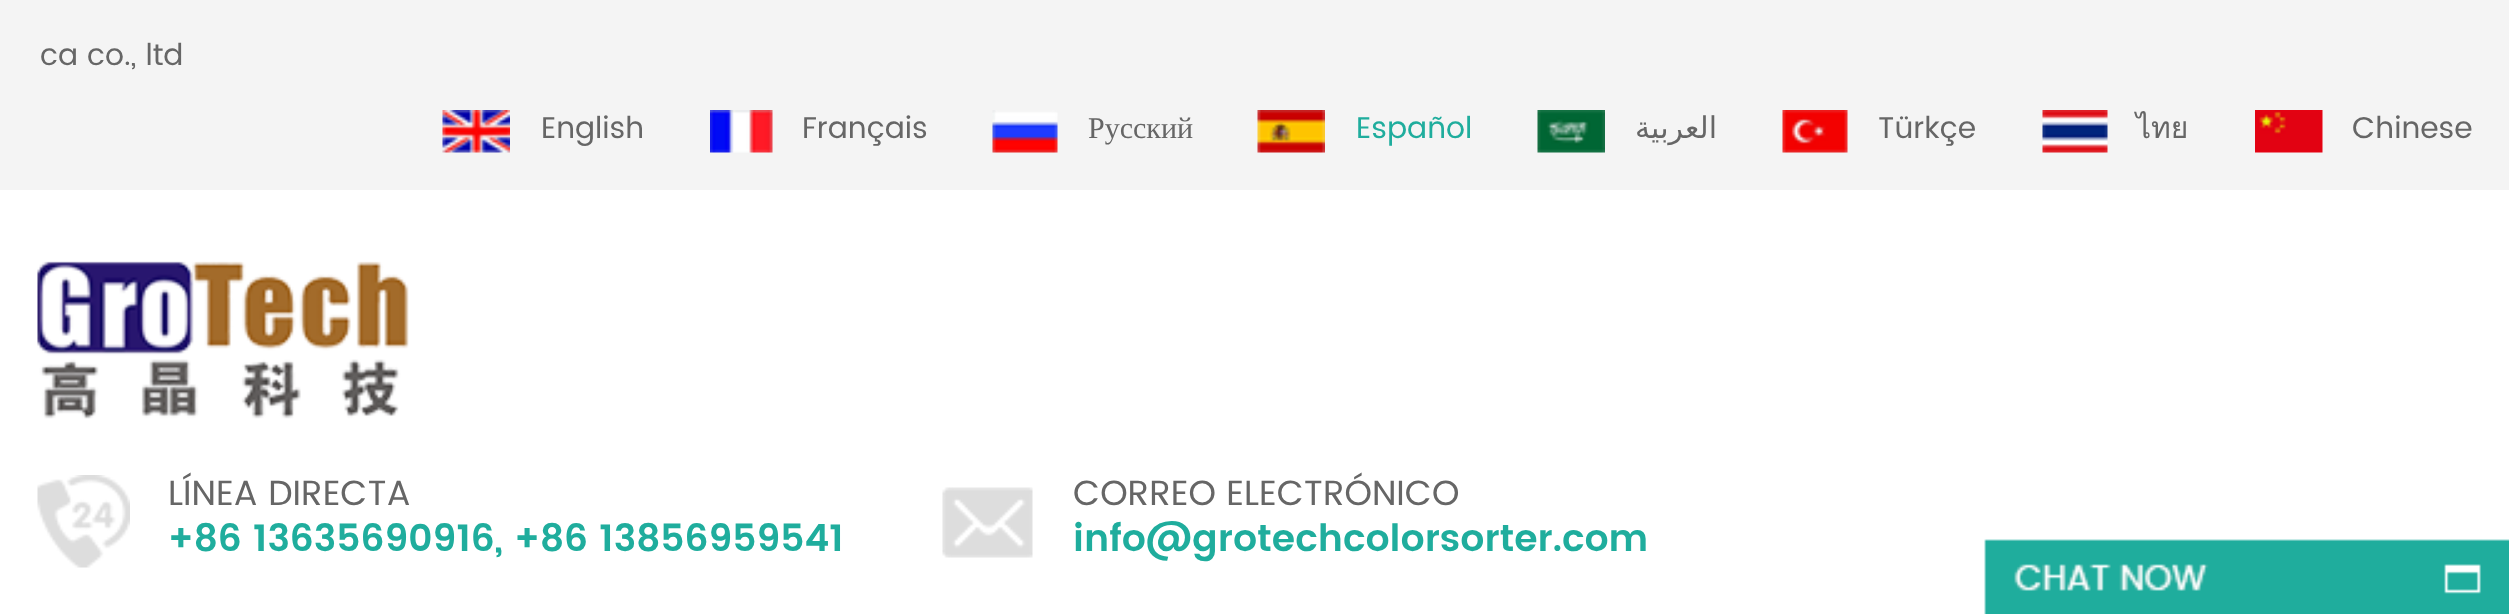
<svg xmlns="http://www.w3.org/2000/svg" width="2509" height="614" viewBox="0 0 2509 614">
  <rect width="100%" height="100%" fill="#fff"/>
  <path d="M0 0h2509v190H0z" fill="#f4f4f4"/>
  <image x="442" y="110" width="68" height="43" href="img/1.png"/>
  <image x="710" y="110" width="63" height="43" href="img/2.png"/>
  <image x="992" y="110" width="66" height="43" href="img/3.png"/>
  <image x="1257" y="110" width="68" height="43" href="img/4.png"/>
  <image x="1537" y="110" width="68" height="43" href="img/5.png"/>
  <image x="1782" y="110" width="66" height="43" href="img/6.png"/>
  <image x="2042" y="110" width="66" height="43" href="img/7.png"/>
  <image x="2255" y="110" width="68" height="43" href="img/8.png"/>
  <image x="37" y="261" width="372" height="158" href="img/9.png"/>
  <image x="37" y="475" width="93" height="93" href="img/10.png"/>
  <image x="942" y="487" width="91" height="71" href="img/11.png"/>
  <image x="1984" y="539" width="525" height="75" href="img/12.png"/>
  <g font-family="Poppins" font-size="30" fill="#666">
    <text x="40" y="65">ca co., ltd</text>
    <text x="541" y="138">English</text>
    <text x="802" y="138">Français</text>
  </g>
  <text x="1088" y="138" font-family="Liberation Serif" font-size="30" fill="#666">Русский</text>
  <text x="1356" y="138" font-family="Poppins" font-size="30" fill="#1fad9d">Español</text>
  <text x="1717" y="138" font-family="DejaVu Sans" font-size="30" direction="rtl" fill="#666">العربية</text>
  <text x="1878" y="138" font-family="Poppins" font-size="30" fill="#666">Türkçe</text>
  <text x="2136" y="138" font-family="Loma" font-size="30" fill="#666">ไทย</text>
  <text x="2352" y="138" font-family="Poppins" font-size="30" fill="#666">Chinese</text>
  <text x="168" y="505" font-family="Poppins" font-size="35" fill="#666">LÍNEA DIRECTA</text>
  <text x="168" y="551" font-family="Poppins" font-size="37.5" font-weight="600" fill="#1fad9d">+86 13635690916, +86 13856959541</text>
  <text x="1073" y="505" font-family="Poppins" font-size="35" fill="#666">CORREO ELECTRÓNICO</text>
  <text x="1073" y="551" font-family="Poppins" font-size="37.5" font-weight="600" fill="#1fad9d">info@grotechcolorsorter.com</text>
</svg>
